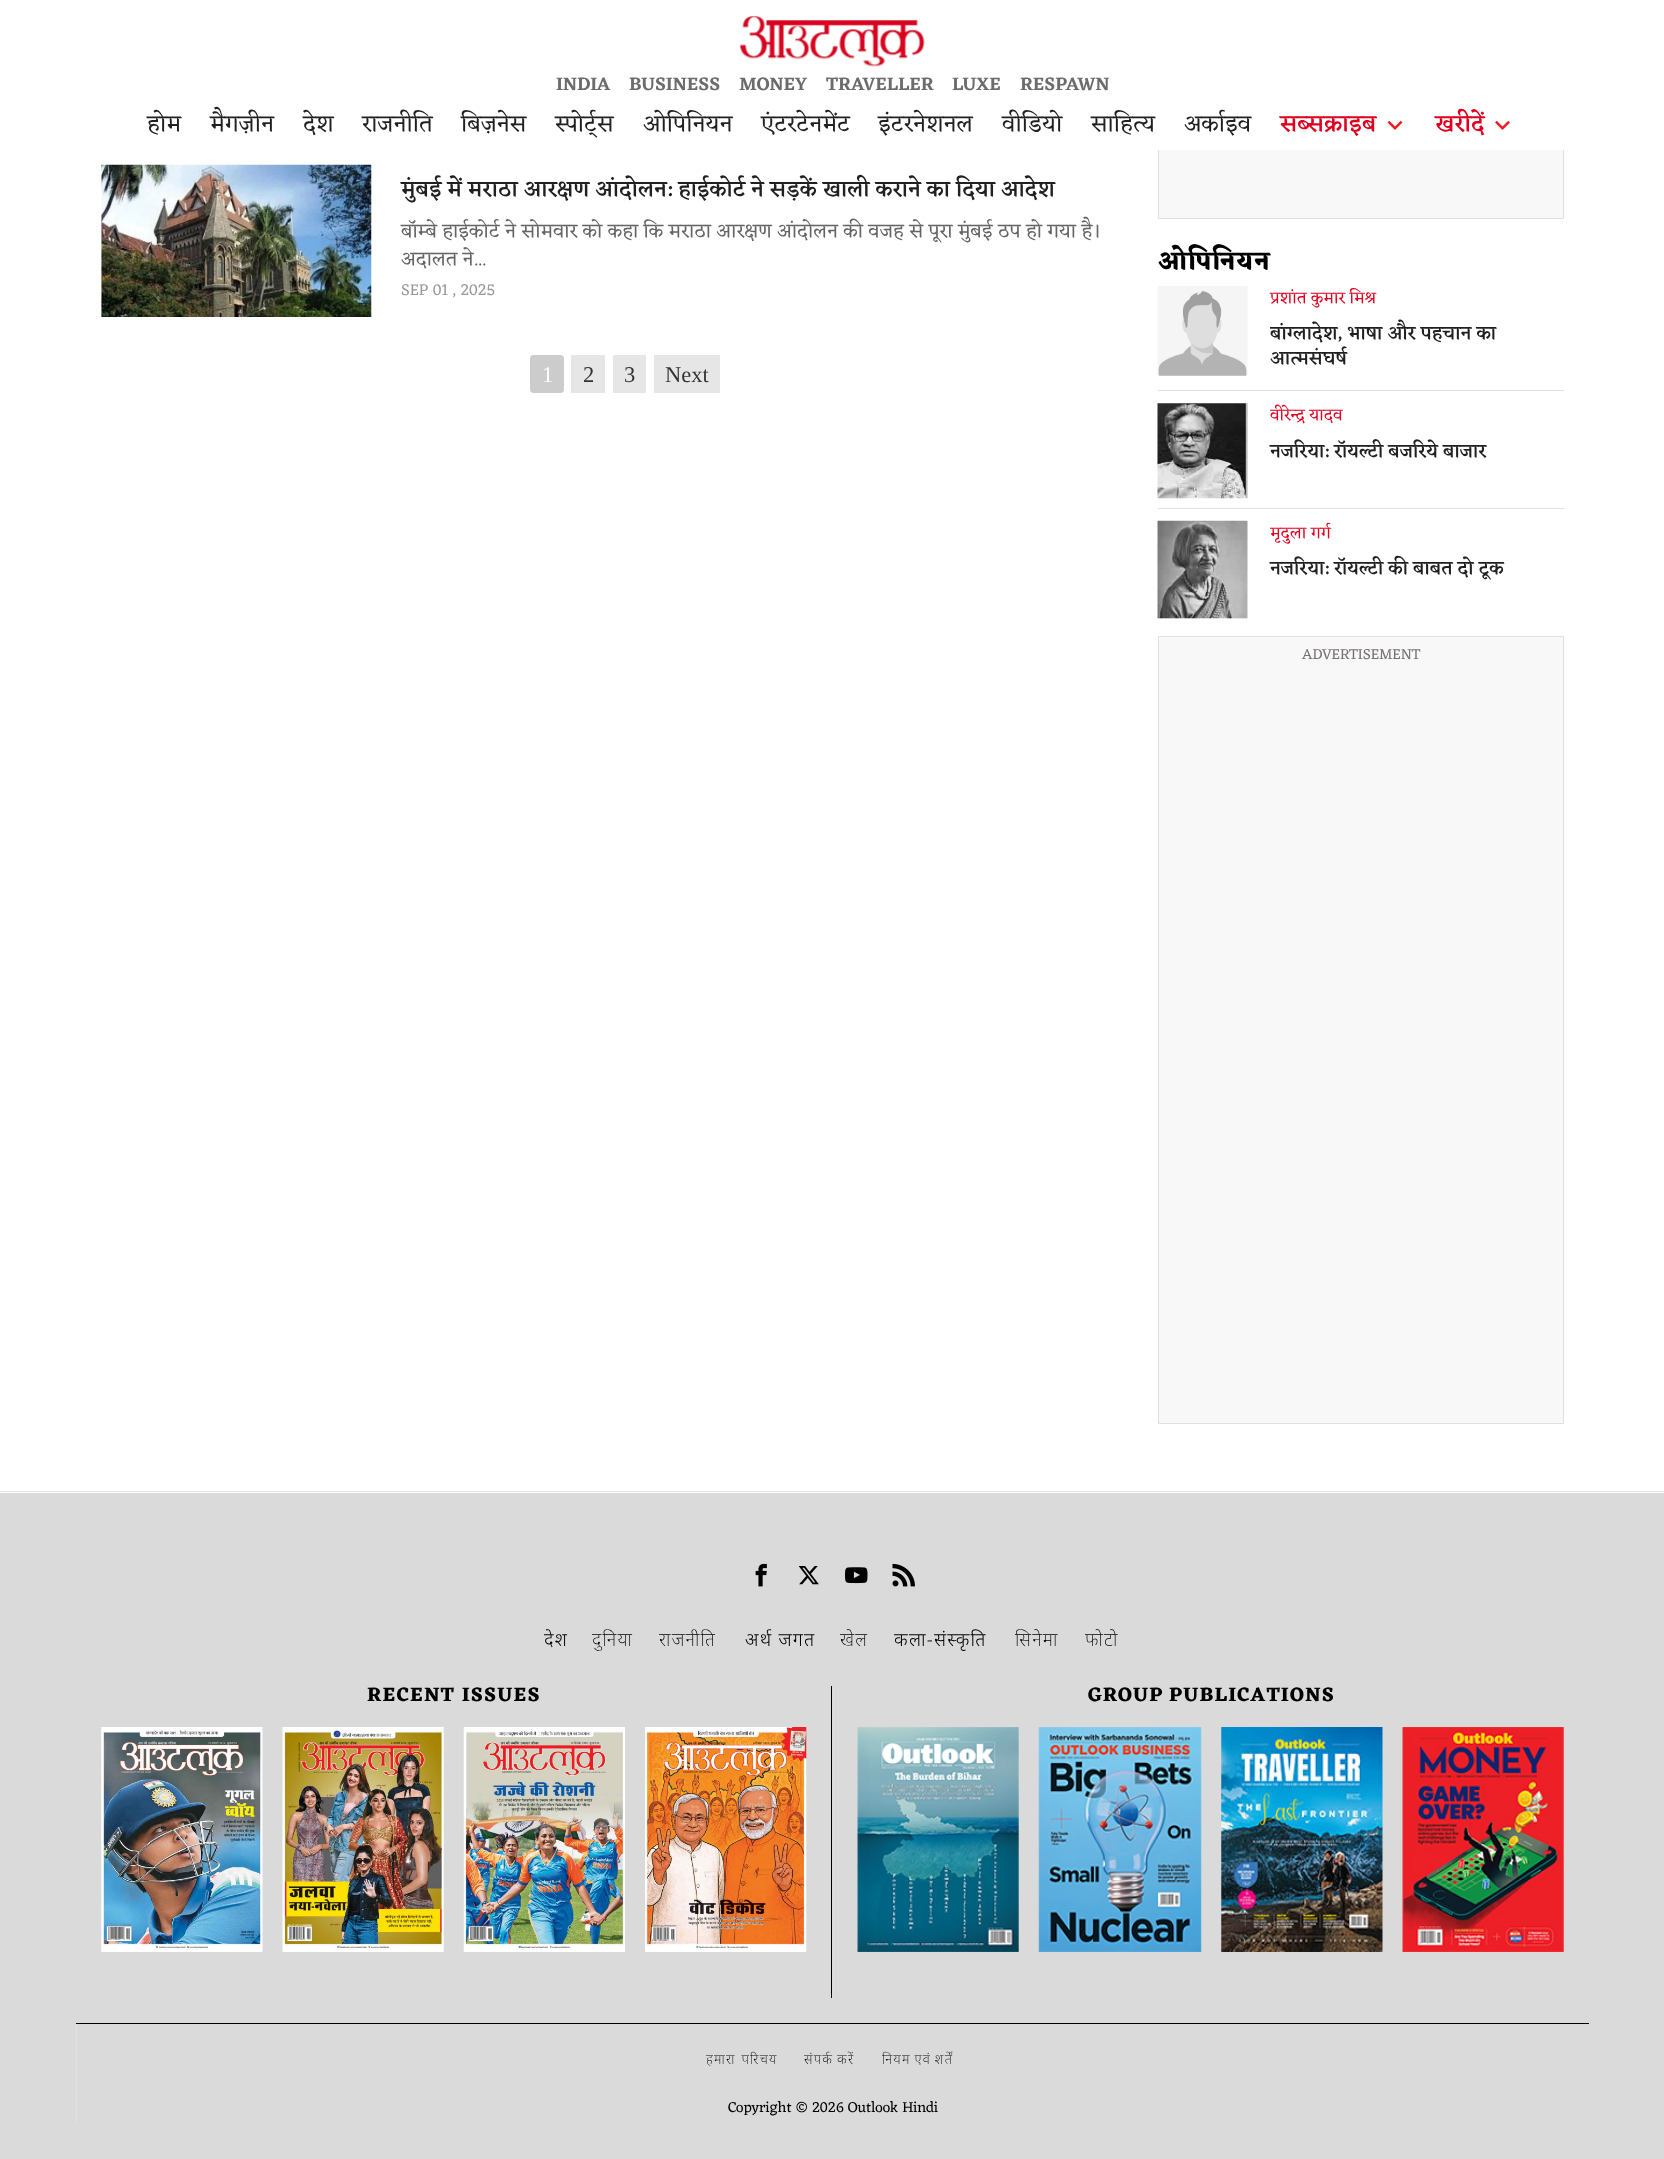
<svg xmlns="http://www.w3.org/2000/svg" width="1664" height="2159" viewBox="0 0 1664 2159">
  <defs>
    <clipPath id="clip1"><path d="M1270 286h294v87H1270z"/></clipPath>
    <clipPath id="clip2"><path d="M1270 404h294v61H1270z"/></clipPath>
    <clipPath id="clip3"><path d="M1270 521h294v62H1270z"/></clipPath>
  </defs>
  <rect width="100%" height="100%" fill="#fff"/>
  <path d="M1159 150h404v68H1159z" fill="#f8f8f8"/>
  <path d="M1158.5 -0.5h405v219H1158.5z" fill="none" stroke="#e1dede"/>
  <path d="M1158 0h406v150H1158z" fill="#fff"/>
  <image x="739" y="15" width="186" height="52" href="img/1.png"/>
  <image x="1387" y="120" width="16" height="10" href="img/2.png"/>
  <image x="1495" y="120" width="15" height="10" href="img/3.png"/>
  <image x="101" y="164" width="271" height="153" href="img/4.png"/>
  <rect x="530" y="355" width="34" height="38" rx="4" fill="#ccc"/>
  <path d="M571 355h34v38H571z" fill="#e6e6e6"/>
  <path d="M613 355h33v38H613z" fill="#e6e6e6"/>
  <path d="M654 355h66v38H654z" fill="#e6e6e6"/>
  <image x="1157" y="286" width="91" height="90" href="img/5.png"/>
  <path d="M1158 390h406v1H1158z" fill="#e0e0e1"/>
  <image x="1157" y="403" width="91" height="96" href="img/6.png"/>
  <path d="M1158 508h406v1H1158z" fill="#e0e0e1"/>
  <image x="1157" y="520" width="91" height="99" href="img/7.png"/>
  <path d="M1158.5 636.5h405v787H1158.5z" fill="#f8f8f8" stroke="#e1dede"/>
  <path d="M0 1493h1664v666H0z" fill="#dadada"/>
  <path d="M0 1491h1664v1H0z" fill="#e0e0e1"/>
  <image x="755" y="1563" width="12" height="24" href="img/8.png"/>
  <image x="798" y="1566" width="21" height="19" href="img/9.png"/>
  <image x="845" y="1567" width="23" height="17" href="img/10.png"/>
  <image x="892" y="1563" width="23" height="24" href="img/11.png"/>
  <path d="M831 1686h1v312H831z" fill="#000"/>
  <image x="101" y="1727" width="162" height="225" href="img/12.png"/>
  <image x="282" y="1727" width="162" height="225" href="img/13.png"/>
  <image x="463" y="1727" width="162" height="225" href="img/14.png"/>
  <image x="645" y="1727" width="162" height="225" href="img/15.png"/>
  <path d="M833 1686h1v312H833z" fill="#e0e0e1"/>
  <image x="857" y="1727" width="162" height="225" href="img/16.png"/>
  <image x="1038" y="1727" width="164" height="225" href="img/17.png"/>
  <image x="1221" y="1727" width="162" height="225" href="img/18.png"/>
  <image x="1402" y="1727" width="162" height="225" href="img/19.png"/>
  <path d="M76 2023h1513v1H76z" fill="#000"/>
  <path d="M76 2024h1v99H76z" fill="#e0e0e1"/>
  <g font-family="Eczar" font-size="18.75" font-weight="600" fill="#6e6b6b">
    <text x="556" y="90">INDIA</text>
    <text x="629" y="90">BUSINESS</text>
    <text x="739" y="90">MONEY</text>
    <text x="826" y="90">TRAVELLER</text>
    <text x="952" y="90">LUXE</text>
    <text x="1020" y="90">RESPAWN</text>
  </g>
  <g font-family="Eczar" font-size="23.75" fill="#221f1f">
    <text x="147" y="131">होम</text>
    <text x="210" y="131">मैगज़ीन</text>
    <text x="303" y="131">देश</text>
    <text x="362" y="131">राजनीति</text>
    <text x="461" y="131">बिज़नेस</text>
    <text x="555" y="131">स्पोर्ट्स</text>
    <text x="643" y="131">ओपिनियन</text>
    <text x="761" y="131">एंटरटेनमेंट</text>
    <text x="878" y="131">इंटरनेशनल</text>
    <text x="1002" y="131">वीडियो</text>
    <text x="1091" y="131">साहित्य</text>
    <text x="1184" y="131">अर्काइव</text>
  </g>
  <g font-family="Eczar" font-size="23.75" font-weight="500" fill="#df001f">
    <text x="1280" y="131">सब्सक्राइब</text>
    <text x="1435" y="131">खरीदें</text>
  </g>
  <text x="401" y="196" font-family="Eczar" font-size="22.5" font-weight="500" fill="#221f1f">मुंबई में मराठा आरक्षण आंदोलन: हाईकोर्ट ने सड़कें खाली कराने का दिया आदेश</text>
  <g font-family="Eczar" font-size="20" fill="#656565">
    <text x="401" y="237">बॉम्बे हाईकोर्ट ने सोमवार को कहा कि मराठा आरक्षण आंदोलन की वजह से पूरा मुंबई ठप हो गया है।</text>
    <text x="401" y="265">अदालत ने...</text>
  </g>
  <text x="401" y="295" font-family="Eczar" font-size="16.25" fill="#999">SEP 01 , 2025</text>
  <text x="542" y="382" font-family="Liberation Serif" font-size="22.5" fill="#fff">1</text>
  <g font-family="Liberation Serif" font-size="22.5" fill="#333">
    <text x="583" y="382">2</text>
    <text x="624" y="382">3</text>
    <text x="665" y="382">Next</text>
  </g>
  <text x="1158" y="269" font-family="Eczar" font-size="25" font-weight="bold" letter-spacing="1.25" fill="#000">ओपिनियन</text>
  <text x="1270" y="303" font-family="Eczar" font-size="17" fill="#df001f">प्रशांत कुमार मिश्र</text>
  <g clip-path="url(#clip1)">
    <text x="1270" y="339" font-family="Eczar" font-size="19.1" font-weight="500" fill="#221f1f">बांग्लादेश, भाषा और पहचान का</text>
  </g>
  <text x="1270" y="364" font-family="Eczar" font-size="19.1" font-weight="500" fill="#221f1f">आत्मसंघर्ष</text>
  <g clip-path="url(#clip2)">
    <text x="1270" y="420" font-family="Eczar" font-size="17" fill="#df001f">वीरेन्द्र यादव</text>
  </g>
  <text x="1270" y="457" font-family="Eczar" font-size="19.1" font-weight="500" fill="#221f1f">नजरिया: रॉयल्टी बजरिये बाजार</text>
  <g clip-path="url(#clip3)">
    <text x="1270" y="538" font-family="Eczar" font-size="17" fill="#df001f">मृदुला गर्ग</text>
  </g>
  <text x="1270" y="574" font-family="Eczar" font-size="19.1" font-weight="500" fill="#221f1f">नजरिया: रॉयल्टी की बाबत दो टूक</text>
  <text x="1302" y="659" font-family="Eczar" font-size="15" fill="#777272">ADVERTISEMENT</text>
  <text x="544" y="1646" font-family="Noto Sans" font-size="18.75" font-weight="300" letter-spacing="1.25" fill="#000">देश</text>
  <g font-family="Noto Sans" font-size="18.75" font-weight="200" letter-spacing="1.25" fill="#000">
    <text x="592" y="1646">दुनिया</text>
    <text x="659" y="1646">राजनीति</text>
  </g>
  <text x="745" y="1646" font-family="Noto Sans" font-size="18.75" font-weight="300" letter-spacing="1.25" fill="#000">अर्थ जगत</text>
  <text x="840" y="1646" font-family="Noto Sans" font-size="18.75" font-weight="200" letter-spacing="1.25" fill="#000">खेल</text>
  <text x="894" y="1646" font-family="Noto Sans" font-size="18.75" font-weight="300" letter-spacing="1.25" fill="#000">कला-संस्कृति</text>
  <g font-family="Noto Sans" font-size="18.75" font-weight="200" letter-spacing="1.25" fill="#000">
    <text x="1015" y="1646">सिनेमा</text>
    <text x="1085" y="1646">फोटो</text>
  </g>
  <g font-family="Eczar" font-size="20" font-weight="bold" letter-spacing="1.25" fill="#000">
    <text x="367" y="1701">RECENT ISSUES</text>
    <text x="1088" y="1701" word-spacing="-1">GROUP PUBLICATIONS</text>
  </g>
  <g font-family="Noto Sans" font-size="13.75" font-weight="200" letter-spacing="1.25" fill="#000">
    <text x="706" y="2064" word-spacing="1">हमारा परिचय</text>
    <text x="804" y="2064" word-spacing="-1">संपर्क करें</text>
    <text x="882" y="2064" word-spacing="-1">नियम एवं शर्तें</text>
  </g>
  <text x="728" y="2112" font-family="Eczar" font-size="15" fill="#000">Copyright © 2026 Outlook Hindi</text>
</svg>
